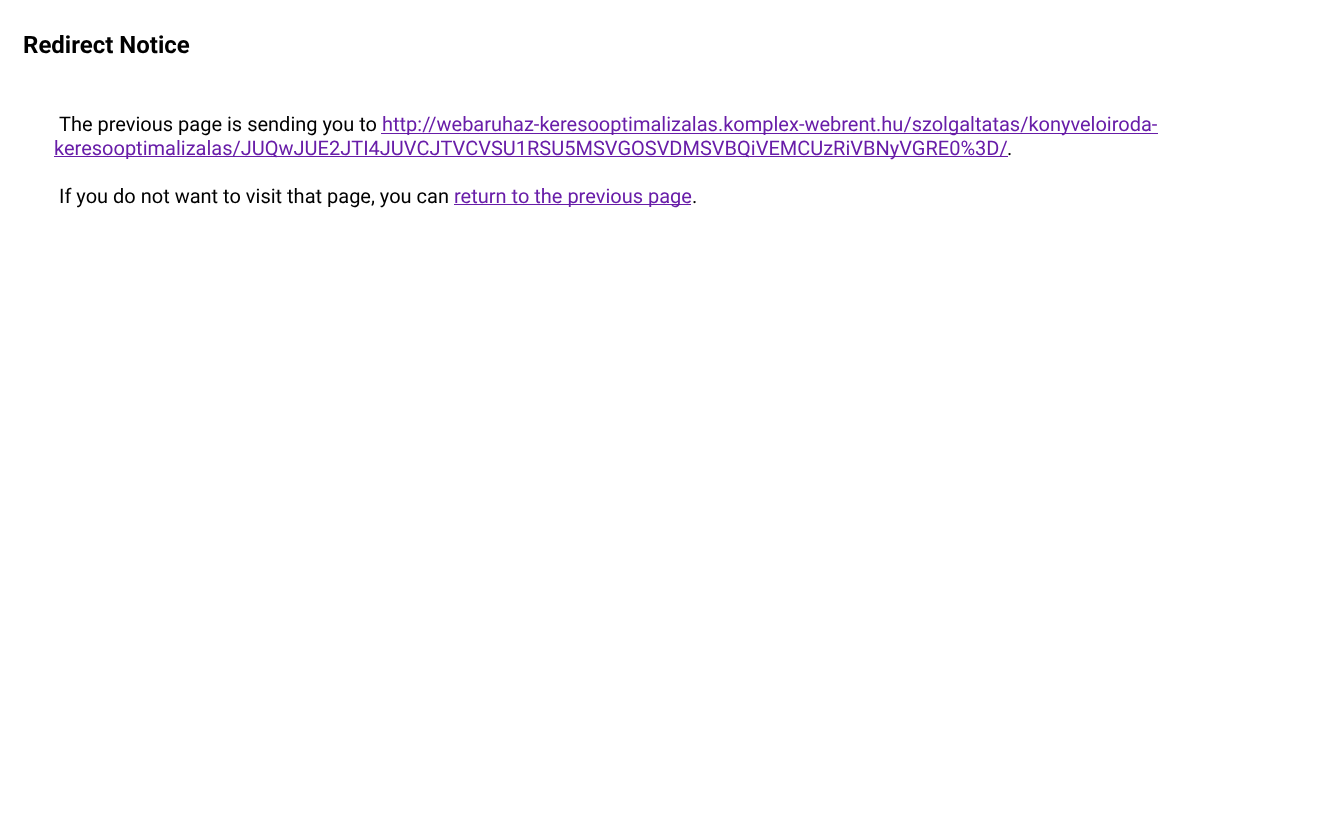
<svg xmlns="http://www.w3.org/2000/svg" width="1343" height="838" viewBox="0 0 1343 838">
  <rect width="100%" height="100%" fill="#fff"/>
  <path d="M381 133h777v1H381z" fill="#681da8"/>
  <path d="M54 156h954v1H54z" fill="#681da8"/>
  <path d="M454 204h237v1H454z" fill="#681da8"/>
  <text x="23" y="53" font-family="Roboto" font-size="24" font-weight="bold" fill="#000">Redirect Notice</text>
  <text x="59" y="131" font-family="Roboto" font-size="20" fill="#000">The previous page is sending you to</text>
  <g font-family="Roboto" font-size="20" fill="#681da8">
    <text x="382" y="131">http://webaruhaz-keresooptimalizalas.komplex-webrent.hu/szolgaltatas/konyveloiroda-</text>
    <text x="54" y="155">keresooptimalizalas/JUQwJUE2JTI4JUVCJTVCVSU1RSU5MSVGOSVDMSVBQiVEMCUzRiVBNyVGRE0%3D/</text>
  </g>
  <g font-family="Roboto" font-size="20" fill="#000">
    <text x="1007" y="155">.</text>
    <text x="59" y="203">If you do not want to visit that page, you can</text>
  </g>
  <text x="454" y="203" font-family="Roboto" font-size="20" fill="#681da8">return to the previous page</text>
  <text x="692" y="203" font-family="Roboto" font-size="20" fill="#000">.</text>
</svg>
